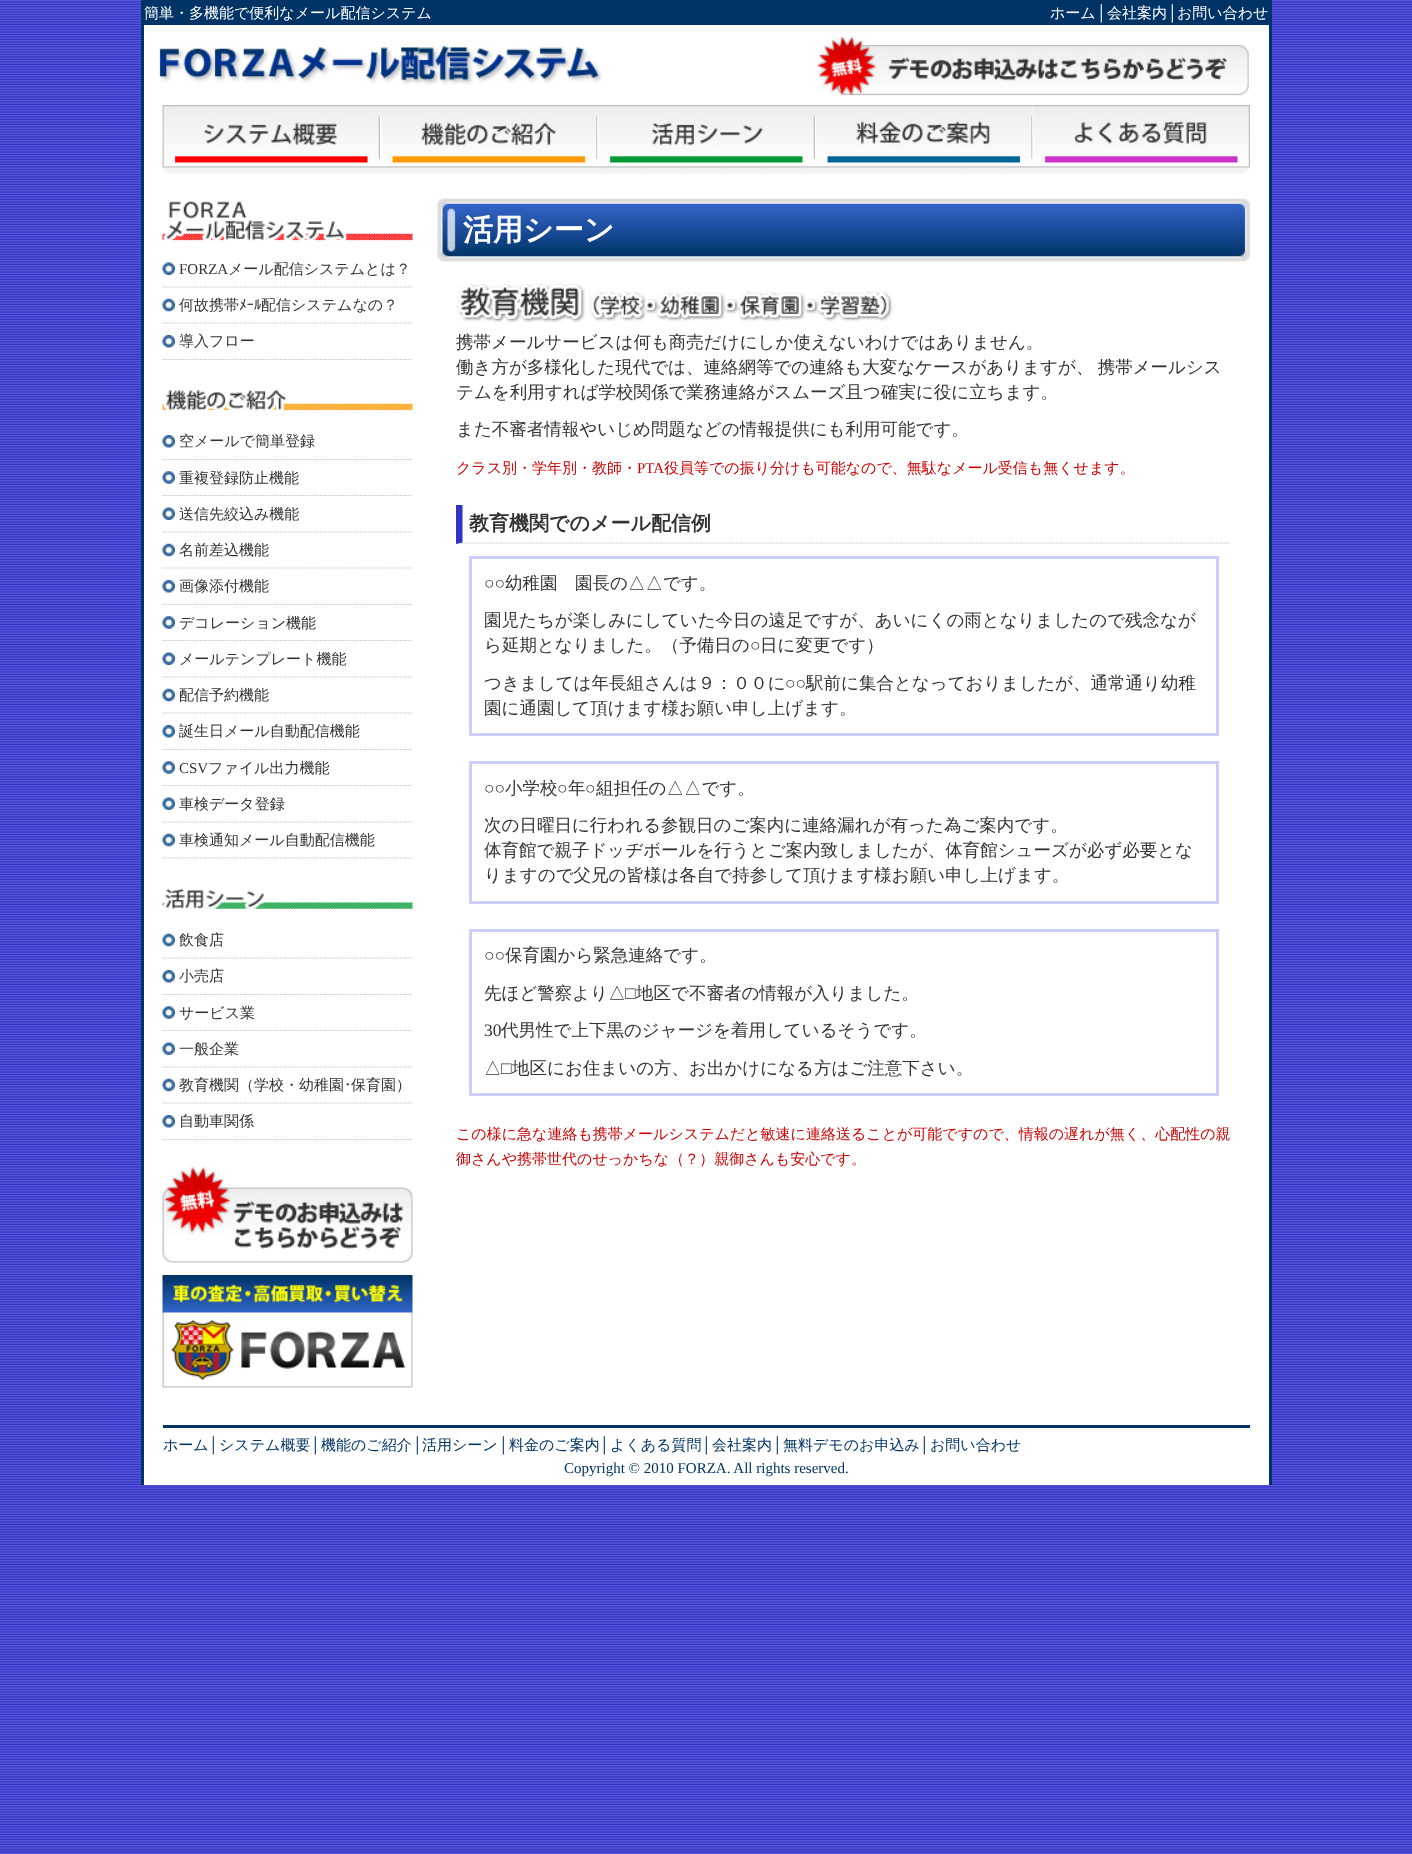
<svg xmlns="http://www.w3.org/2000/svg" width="1412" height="1854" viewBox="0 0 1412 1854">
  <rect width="100%" height="100%" fill="#fff"/>
  <image x="0" y="0" width="1412" height="1854" href="img/1.png"/>
  <path d="M144 25h1125v1460H144z" fill="#fff"/>
  <path d="M1269 0h3v1485H1269z" fill="#036"/>
  <path d="M141 0h3v1485H141z" fill="#036"/>
  <path d="M144 0h1125v25H144z" fill="#036"/>
  <image x="159" y="45" width="444" height="40" href="img/2.png"/>
  <image x="816" y="36" width="433" height="60" href="img/3.png"/>
  <image x="162" y="105" width="218" height="69" href="img/4.png"/>
  <image x="380" y="105" width="218" height="69" href="img/5.png"/>
  <image x="597" y="105" width="218" height="69" href="img/6.png"/>
  <image x="815" y="105" width="218" height="69" href="img/7.png"/>
  <image x="1032" y="105" width="218" height="69" href="img/8.png"/>
  <image x="162" y="201" width="251" height="40" href="img/9.png"/>
  <image x="162" y="262" width="13" height="13" href="img/10.png"/>
  <path d="M162.5 287H412.5" fill="none" stroke="#c0c0c0" stroke-width="1.2" stroke-dasharray="1.25 1.25"/>
  <image x="162" y="298" width="13" height="14" href="img/11.png"/>
  <path d="M162.5 323H412.5" fill="none" stroke="#c0c0c0" stroke-width="1.2" stroke-dasharray="1.25 1.25"/>
  <image x="162" y="335" width="13" height="13" href="img/12.png"/>
  <path d="M162.5 359.5H412.5" fill="none" stroke="#c0c0c0" stroke-width="1.2" stroke-dasharray="1.25 1.25"/>
  <image x="162" y="389" width="251" height="22" href="img/13.png"/>
  <image x="162" y="435" width="13" height="13" href="img/12.png"/>
  <path d="M162.5 459.5H412.5" fill="none" stroke="#c0c0c0" stroke-width="1.2" stroke-dasharray="1.25 1.25"/>
  <image x="162" y="471" width="13" height="13" href="img/14.png"/>
  <path d="M162.5 495.5H412.5" fill="none" stroke="#c0c0c0" stroke-width="1.2" stroke-dasharray="1.25 1.25"/>
  <image x="162" y="507" width="13" height="13" href="img/10.png"/>
  <path d="M162.5 532H412.5" fill="none" stroke="#c0c0c0" stroke-width="1.2" stroke-dasharray="1.25 1.25"/>
  <image x="162" y="543" width="13" height="14" href="img/11.png"/>
  <path d="M162.5 568H412.5" fill="none" stroke="#c0c0c0" stroke-width="1.2" stroke-dasharray="1.25 1.25"/>
  <image x="162" y="580" width="13" height="13" href="img/12.png"/>
  <path d="M162.5 604.5H412.5" fill="none" stroke="#c0c0c0" stroke-width="1.2" stroke-dasharray="1.25 1.25"/>
  <image x="162" y="616" width="13" height="13" href="img/14.png"/>
  <path d="M162.5 640.5H412.5" fill="none" stroke="#c0c0c0" stroke-width="1.2" stroke-dasharray="1.25 1.25"/>
  <image x="162" y="652" width="13" height="13" href="img/10.png"/>
  <path d="M162.5 677H412.5" fill="none" stroke="#c0c0c0" stroke-width="1.2" stroke-dasharray="1.25 1.25"/>
  <image x="162" y="688" width="13" height="14" href="img/11.png"/>
  <path d="M162.5 713H412.5" fill="none" stroke="#c0c0c0" stroke-width="1.2" stroke-dasharray="1.25 1.25"/>
  <image x="162" y="725" width="13" height="13" href="img/12.png"/>
  <path d="M162.5 749.5H412.5" fill="none" stroke="#c0c0c0" stroke-width="1.2" stroke-dasharray="1.25 1.25"/>
  <image x="162" y="761" width="13" height="13" href="img/14.png"/>
  <path d="M162.5 785.5H412.5" fill="none" stroke="#c0c0c0" stroke-width="1.2" stroke-dasharray="1.25 1.25"/>
  <image x="162" y="797" width="13" height="13" href="img/10.png"/>
  <path d="M162.5 822H412.5" fill="none" stroke="#c0c0c0" stroke-width="1.2" stroke-dasharray="1.25 1.25"/>
  <image x="162" y="833" width="13" height="14" href="img/11.png"/>
  <path d="M162.5 858H412.5" fill="none" stroke="#c0c0c0" stroke-width="1.2" stroke-dasharray="1.25 1.25"/>
  <image x="162" y="888" width="251" height="21" href="img/15.png"/>
  <image x="162" y="933" width="13" height="14" href="img/11.png"/>
  <path d="M162.5 958H412.5" fill="none" stroke="#c0c0c0" stroke-width="1.2" stroke-dasharray="1.25 1.25"/>
  <image x="162" y="970" width="13" height="13" href="img/12.png"/>
  <path d="M162.5 994.5H412.5" fill="none" stroke="#c0c0c0" stroke-width="1.2" stroke-dasharray="1.25 1.25"/>
  <image x="162" y="1006" width="13" height="13" href="img/14.png"/>
  <path d="M162.5 1030.5H412.5" fill="none" stroke="#c0c0c0" stroke-width="1.2" stroke-dasharray="1.25 1.25"/>
  <image x="162" y="1042" width="13" height="13" href="img/10.png"/>
  <path d="M162.5 1067H412.5" fill="none" stroke="#c0c0c0" stroke-width="1.2" stroke-dasharray="1.25 1.25"/>
  <image x="162" y="1078" width="13" height="14" href="img/11.png"/>
  <path d="M162.5 1103H412.5" fill="none" stroke="#c0c0c0" stroke-width="1.2" stroke-dasharray="1.25 1.25"/>
  <image x="162" y="1115" width="13" height="13" href="img/12.png"/>
  <path d="M162.5 1139.5H412.5" fill="none" stroke="#c0c0c0" stroke-width="1.2" stroke-dasharray="1.25 1.25"/>
  <image x="162" y="1166" width="251" height="97" href="img/16.png"/>
  <image x="162" y="1275" width="251" height="113" href="img/17.png"/>
  <image x="437" y="198" width="813" height="64" href="img/18.png"/>
  <image x="456" y="284" width="437" height="39" href="img/19.png"/>
  <path d="M456 543H1231" fill="none" stroke="#c0c0c0" stroke-width="1.2" stroke-dasharray="1.25 1.25"/>
  <path d="M456 544V505H462.5V542.5Z" fill="#33c"/>
  <path d="M470.5 557.5h747v177H470.5z" fill="none" stroke="#ccf" stroke-width="3"/>
  <path d="M470.5 762.5h747v140H470.5z" fill="none" stroke="#ccf" stroke-width="3"/>
  <path d="M470.5 930.5h747v164H470.5z" fill="none" stroke="#ccf" stroke-width="3"/>
  <path d="M163 1425h1087v3H163z" fill="#036"/>
  <g font-family="WenQuanYi Zen Hei" font-size="15" font-weight="500" fill="#fff">
    <text x="144" y="18">簡単・多機能で便利なメール配信システム</text>
    <text x="1050" y="18">ホーム</text>
  </g>
  <text x="1096" y="18" font-family="Liberation Serif" font-size="15" fill="#fff">│</text>
  <text x="1107" y="18" font-family="WenQuanYi Zen Hei" font-size="15" font-weight="500" fill="#fff">会社案内</text>
  <text x="1167" y="18" font-family="Liberation Serif" font-size="15" fill="#fff">│</text>
  <text x="1177" y="18" font-family="WenQuanYi Zen Hei" font-size="15" font-weight="500" fill="#fff">お問い合わせ</text>
  <text x="179" y="274" font-family="Liberation Serif" font-size="15" fill="#333">FORZA</text>
  <g font-family="WenQuanYi Zen Hei" font-size="15" font-weight="500" fill="#333">
    <text x="228" y="274">メール配信システムとは？</text>
    <text x="179" y="310">何故携帯</text>
  </g>
  <text x="239" y="310" font-family="IPAGothic" font-size="15" fill="#333">ﾒｰﾙ</text>
  <g font-family="WenQuanYi Zen Hei" font-size="15" font-weight="500" fill="#333">
    <text x="261" y="310">配信システムなの？</text>
    <text x="179" y="346">導入フロー</text>
    <text x="179" y="446">空メールで簡単登録</text>
    <text x="179" y="483">重複登録防止機能</text>
    <text x="179" y="519">送信先絞込み機能</text>
    <text x="179" y="555">名前差込機能</text>
    <text x="179" y="591">画像添付機能</text>
    <text x="179" y="628">デコレーション機能</text>
    <text x="179" y="664">メールテンプレート機能</text>
    <text x="179" y="700">配信予約機能</text>
    <text x="179" y="736">誕生日メール自動配信機能</text>
  </g>
  <text x="179" y="773" font-family="Liberation Serif" font-size="15" fill="#333">CSV</text>
  <g font-family="WenQuanYi Zen Hei" font-size="15" font-weight="500" fill="#333">
    <text x="208" y="773">ファイル出力機能</text>
    <text x="179" y="809">車検データ登録</text>
    <text x="179" y="845">車検通知メール自動配信機能</text>
    <text x="179" y="945">飲食店</text>
    <text x="179" y="981">小売店</text>
    <text x="179" y="1018">サービス業</text>
    <text x="179" y="1054">一般企業</text>
    <text x="179" y="1090">教育機関（学校・幼稚園</text>
  </g>
  <text x="344" y="1090" font-family="IPAGothic" font-size="15" fill="#333">･</text>
  <g font-family="WenQuanYi Zen Hei" font-size="15" font-weight="500" fill="#333">
    <text x="351" y="1090">保育園）</text>
    <text x="179" y="1126">自動車関係</text>
  </g>
  <text x="463" y="240" font-family="WenQuanYi Zen Hei" font-size="30" font-weight="bold" fill="#fff">活用シーン</text>
  <g font-family="WenQuanYi Zen Hei" font-size="17.5" font-weight="500" fill="#333">
    <text x="456" y="348">携帯メールサービスは何も商売だけにしか使えないわけではありません。</text>
    <text x="456" y="373" word-spacing="-1">働き方が多様化した現代では、連絡網等での連絡も大変なケースがありますが、 携帯メールシス</text>
    <text x="456" y="398">テムを利用すれば学校関係で業務連絡がスムーズ且つ確実に役に立ちます。</text>
    <text x="456" y="435">また不審者情報やいじめ問題などの情報提供にも利用可能です。</text>
  </g>
  <text x="456" y="473" font-family="WenQuanYi Zen Hei" font-size="15" font-weight="500" fill="#c00">クラス別・学年別・教師・</text>
  <text x="637" y="473" font-family="Liberation Serif" font-size="15" fill="#c00">PTA</text>
  <text x="664" y="473" font-family="WenQuanYi Zen Hei" font-size="15" font-weight="500" fill="#c00">役員等での振り分けも可能なので、無駄なメール受信も無くせます。</text>
  <text x="469" y="530" font-family="WenQuanYi Zen Hei" font-size="20" font-weight="bold" fill="#333">教育機関でのメール配信例</text>
  <text x="484" y="589" font-family="Liberation Serif" font-size="17.5" fill="#333">○○</text>
  <g font-family="WenQuanYi Zen Hei" font-size="17.5" font-weight="500" fill="#333">
    <text x="505" y="589">幼稚園　園長の△△です。</text>
    <text x="484" y="626">園児たちが楽しみにしていた今日の遠足ですが、あいにくの雨となりましたので残念なが</text>
    <text x="484" y="651">ら延期となりました。（予備日の</text>
  </g>
  <text x="750" y="651" font-family="Liberation Serif" font-size="17.5" fill="#333">○</text>
  <g font-family="WenQuanYi Zen Hei" font-size="17.5" font-weight="500" fill="#333">
    <text x="760" y="651">日に変更です）</text>
    <text x="484" y="689">つきましては年長組さんは９：００に</text>
  </g>
  <text x="785" y="689" font-family="Liberation Serif" font-size="17.5" fill="#333">○○</text>
  <g font-family="WenQuanYi Zen Hei" font-size="17.5" font-weight="500" fill="#333">
    <text x="806" y="689">駅前に集合となっておりましたが、通常通り幼稚</text>
    <text x="484" y="714">園に通園して頂けます様お願い申し上げます。</text>
  </g>
  <text x="484" y="794" font-family="Liberation Serif" font-size="17.5" fill="#333">○○</text>
  <text x="505" y="794" font-family="WenQuanYi Zen Hei" font-size="17.5" font-weight="500" fill="#333">小学校</text>
  <text x="557" y="794" font-family="Liberation Serif" font-size="17.5" fill="#333">○</text>
  <text x="568" y="794" font-family="WenQuanYi Zen Hei" font-size="17.5" font-weight="500" fill="#333">年</text>
  <text x="585" y="794" font-family="Liberation Serif" font-size="17.5" fill="#333">○</text>
  <g font-family="WenQuanYi Zen Hei" font-size="17.5" font-weight="500" fill="#333">
    <text x="596" y="794">組担任の△△です。</text>
    <text x="484" y="831">次の日曜日に行われる参観日のご案内に連絡漏れが有った為ご案内です。</text>
    <text x="484" y="856">体育館で親子ドッヂボールを行うとご案内致しましたが、体育館シューズが必ず必要とな</text>
    <text x="484" y="881">りますので父兄の皆様は各自で持参して頂けます様お願い申し上げます。</text>
  </g>
  <text x="484" y="961" font-family="Liberation Serif" font-size="17.5" fill="#333">○○</text>
  <g font-family="WenQuanYi Zen Hei" font-size="17.5" font-weight="500" fill="#333">
    <text x="505" y="961">保育園から緊急連絡です。</text>
    <text x="484" y="999">先ほど警察より△</text>
  </g>
  <text x="625" y="999" font-family="Liberation Serif" font-size="17.5" fill="#333">□</text>
  <text x="636" y="999" font-family="WenQuanYi Zen Hei" font-size="17.5" font-weight="500" fill="#333">地区で不審者の情報が入りました。</text>
  <text x="484" y="1036" font-family="Liberation Serif" font-size="17.5" fill="#333">30</text>
  <g font-family="WenQuanYi Zen Hei" font-size="17.5" font-weight="500" fill="#333">
    <text x="501" y="1036">代男性で上下黒のジャージを着用しているそうです。</text>
    <text x="484" y="1074">△</text>
  </g>
  <text x="501" y="1074" font-family="Liberation Serif" font-size="17.5" fill="#333">□</text>
  <text x="512" y="1074" font-family="WenQuanYi Zen Hei" font-size="17.5" font-weight="500" fill="#333">地区にお住まいの方、お出かけになる方はご注意下さい。</text>
  <g font-family="WenQuanYi Zen Hei" font-size="15" font-weight="500" fill="#c00">
    <text x="456" y="1139">この様に急な連絡も携帯メールシステムだと敏速に連絡送ることが可能ですので、情報の遅れが無く、心配性の親</text>
    <text x="456" y="1164">御さんや携帯世代のせっかちな（？）親御さんも安心です。</text>
  </g>
  <text x="163" y="1450" font-family="WenQuanYi Zen Hei" font-size="15" font-weight="500" fill="#036">ホーム</text>
  <text x="208" y="1450" font-family="Liberation Serif" font-size="15" fill="#036">│</text>
  <text x="219" y="1450" font-family="WenQuanYi Zen Hei" font-size="15" font-weight="500" fill="#036">システム概要</text>
  <text x="310" y="1450" font-family="Liberation Serif" font-size="15" fill="#036">│</text>
  <text x="321" y="1450" font-family="WenQuanYi Zen Hei" font-size="15" font-weight="500" fill="#036">機能のご紹介</text>
  <text x="412" y="1450" font-family="Liberation Serif" font-size="15" fill="#036">│</text>
  <text x="422" y="1450" font-family="WenQuanYi Zen Hei" font-size="15" font-weight="500" fill="#036">活用シーン</text>
  <text x="498" y="1450" font-family="Liberation Serif" font-size="15" fill="#036">│</text>
  <text x="509" y="1450" font-family="WenQuanYi Zen Hei" font-size="15" font-weight="500" fill="#036">料金のご案内</text>
  <text x="599" y="1450" font-family="Liberation Serif" font-size="15" fill="#036">│</text>
  <text x="610" y="1450" font-family="WenQuanYi Zen Hei" font-size="15" font-weight="500" fill="#036">よくある質問</text>
  <text x="701" y="1450" font-family="Liberation Serif" font-size="15" fill="#036">│</text>
  <text x="712" y="1450" font-family="WenQuanYi Zen Hei" font-size="15" font-weight="500" fill="#036">会社案内</text>
  <text x="772" y="1450" font-family="Liberation Serif" font-size="15" fill="#036">│</text>
  <text x="783" y="1450" font-family="WenQuanYi Zen Hei" font-size="15" font-weight="500" fill="#036">無料デモのお申込み</text>
  <text x="919" y="1450" font-family="Liberation Serif" font-size="15" fill="#036">│</text>
  <text x="930" y="1450" font-family="WenQuanYi Zen Hei" font-size="15" font-weight="500" fill="#036">お問い合わせ</text>
  <text x="564" y="1473" font-family="Liberation Serif" font-size="15" fill="#036">Copyright © 2010 FORZA. All rights reserved.</text>
</svg>
